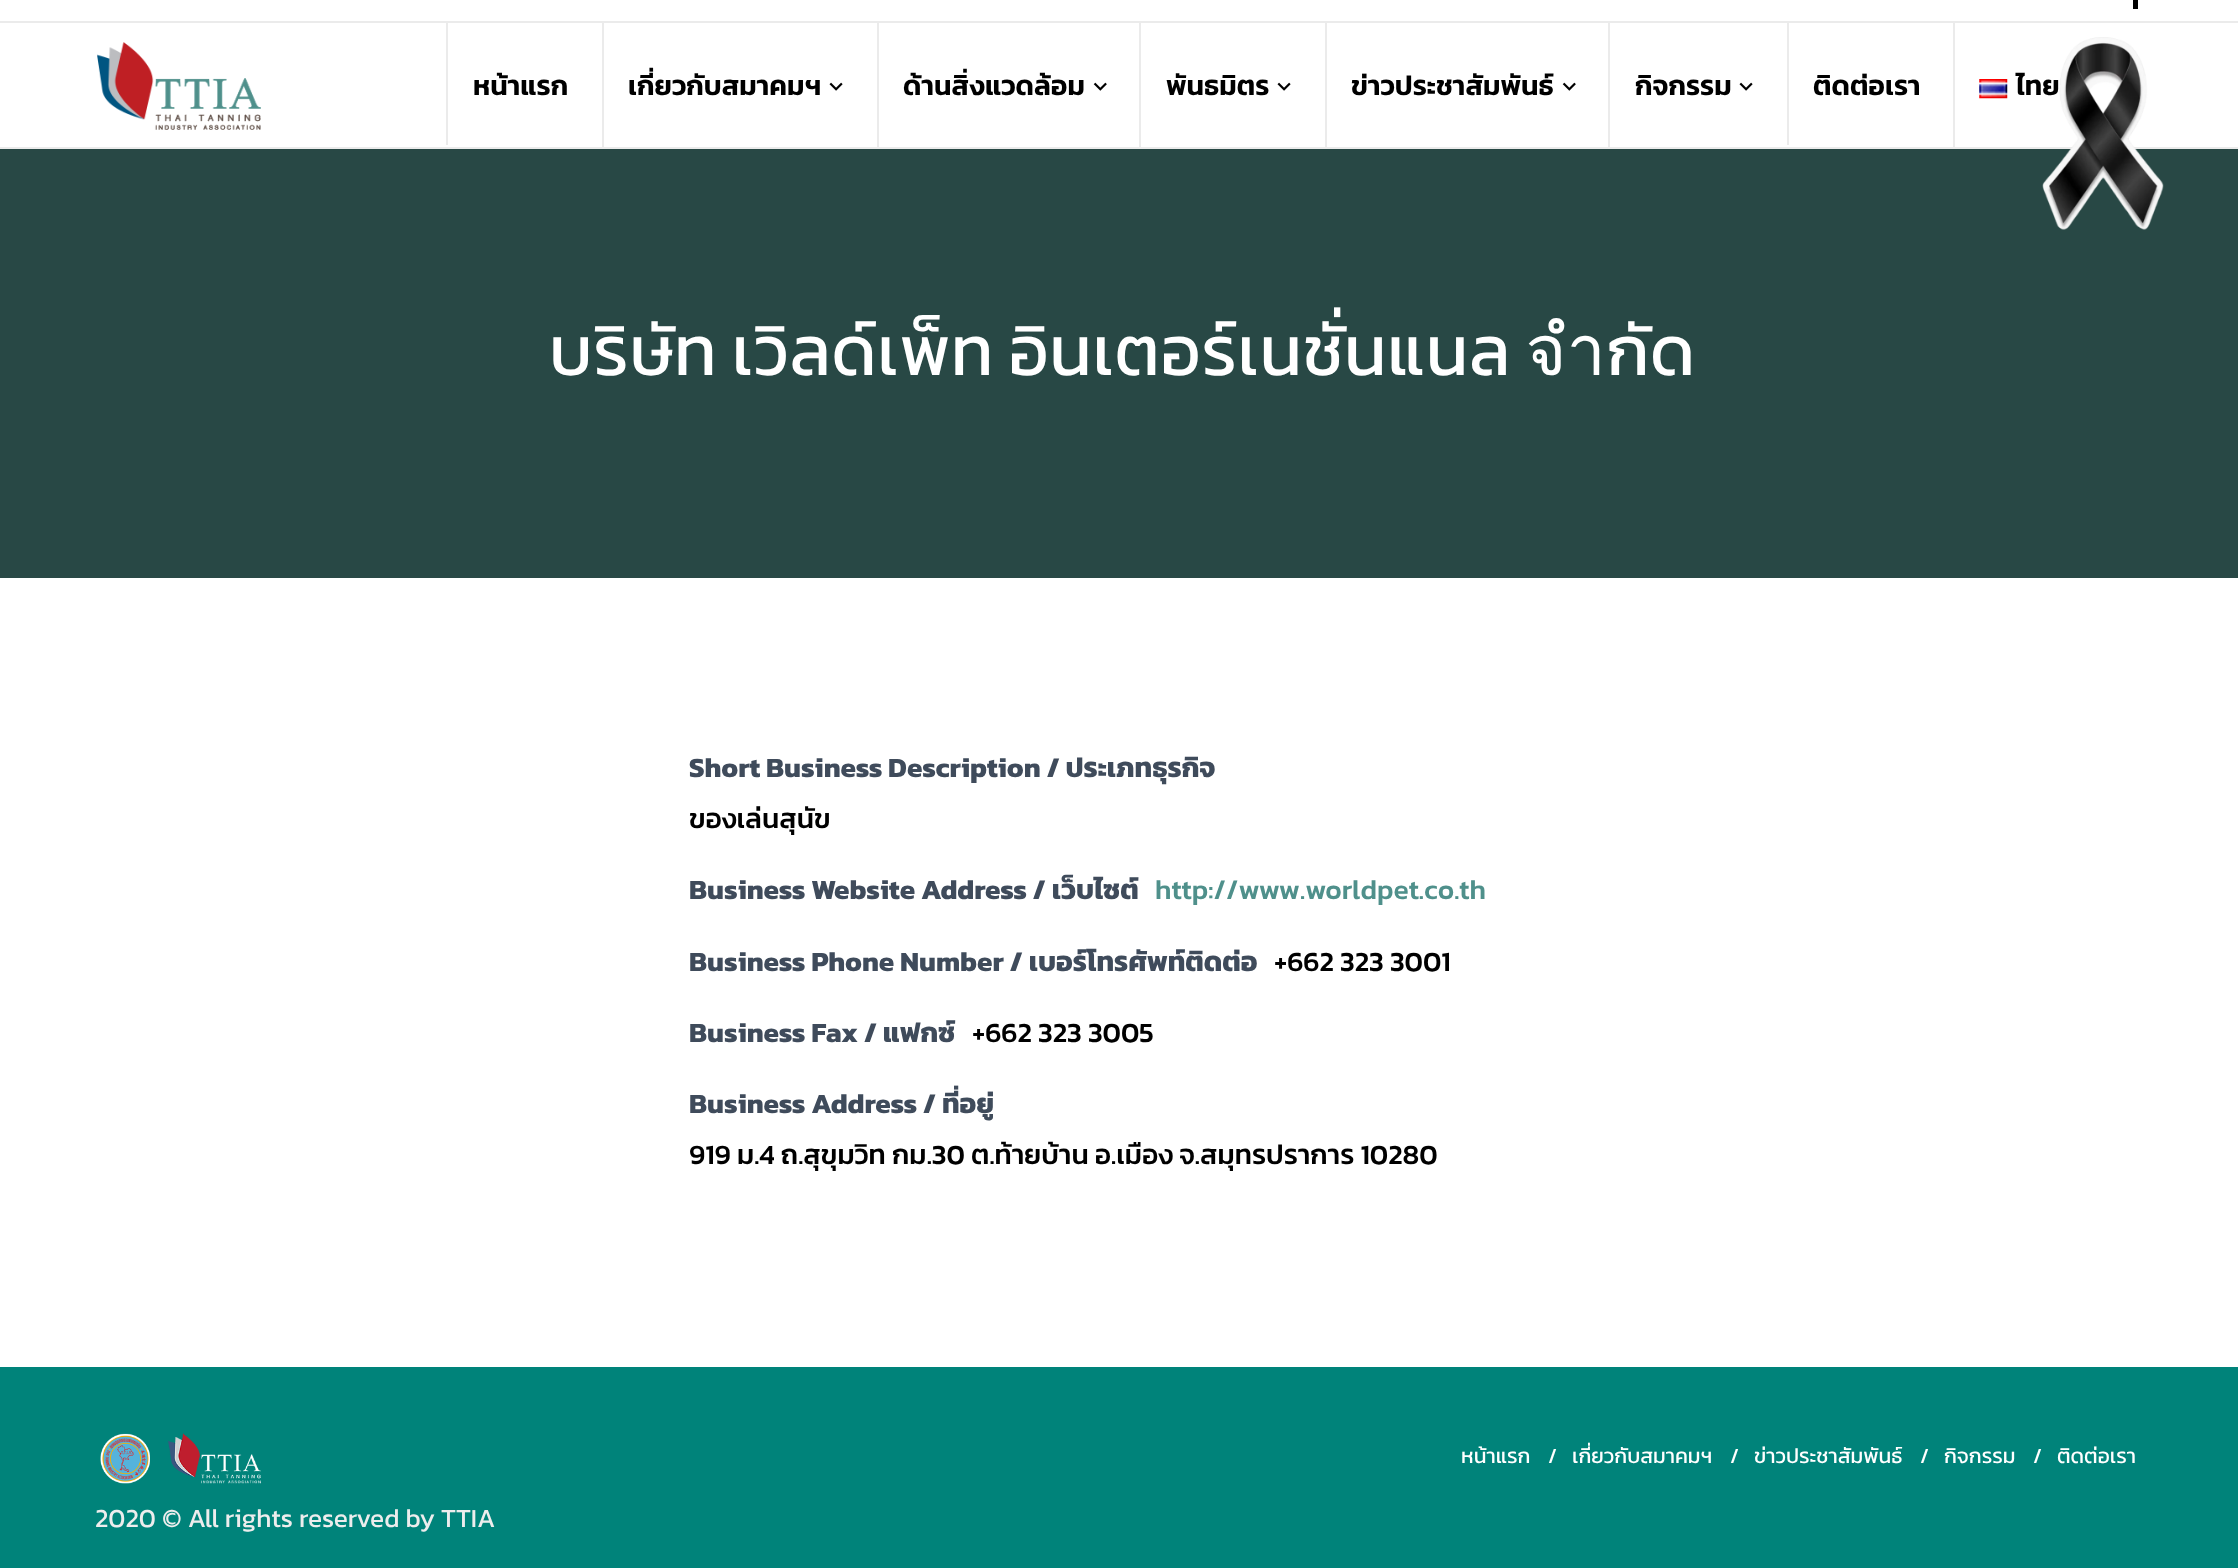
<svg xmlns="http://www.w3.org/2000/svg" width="2238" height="1568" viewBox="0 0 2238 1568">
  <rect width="100%" height="100%" fill="#fff"/>
  <path d="M0 21h2238v2H0z" fill="#ebebeb"/>
  <path d="M2133 0h5v9H2133z" fill="#000"/>
  <path d="M0 147h2238v2H0z" fill="#ebebeb"/>
  <image x="97" y="42" width="164" height="88" href="img/2.png"/>
  <path d="M446 23h2v122H446z" fill="#ebebeb"/>
  <path d="M602 23h2v124H602z" fill="#ebebeb"/>
  <image x="829" y="82" width="14" height="9" href="img/3.png"/>
  <path d="M877 23h2v124H877z" fill="#ebebeb"/>
  <image x="1093" y="82" width="14" height="9" href="img/4.png"/>
  <path d="M1139 23h2v124H1139z" fill="#ebebeb"/>
  <image x="1277" y="82" width="14" height="9" href="img/3.png"/>
  <path d="M1325 23h2v124H1325z" fill="#ebebeb"/>
  <image x="1562" y="82" width="14" height="9" href="img/4.png"/>
  <path d="M1608 23h2v124H1608z" fill="#ebebeb"/>
  <image x="1739" y="82" width="14" height="9" href="img/3.png"/>
  <path d="M1787 23h2v122H1787z" fill="#ebebeb"/>
  <path d="M1953 23h2v124H1953z" fill="#ebebeb"/>
  <image x="1979" y="79" width="29" height="20" href="img/5.png"/>
  <path d="M0 149h2238v429H0z" fill="#284845"/>
  <path d="M0 1367h2238v201H0z" fill="#00837a"/>
  <image x="100" y="1433" width="161" height="51" href="img/6.png"/>
  <g font-family="Kanit" font-size="28" font-weight="600" fill="#000">
    <text x="473" y="95">หน้าแรก</text>
    <text x="628" y="95">เกี่ยวกับสมาคมฯ</text>
    <text x="903" y="95">ด้านสิ่งแวดล้อม</text>
    <text x="1166" y="95">พันธมิตร</text>
    <text x="1351" y="95">ข่าวประชาสัมพันธ์</text>
    <text x="1635" y="95">กิจกรรม</text>
    <text x="1813" y="95">ติดต่อเรา</text>
    <text x="2016" y="95">ไทย</text>
  </g>
  <image x="2042" y="37" width="122" height="193" href="img/1.png"/>
  <text x="549" y="375" word-spacing="-2.5" font-family="Kanit" font-size="70" letter-spacing="0.7" fill="#fff">บริษัท เวิลด์เพ็ท อินเตอร์เนชั่นแนล จำกัด</text>
  <text x="689" y="777" font-family="Kanit" font-size="28" font-weight="bold" fill="#3f4b5b">Short Business Description / ประเภทธุรกิจ</text>
  <text x="689" y="828" font-family="Kanit" font-size="28" font-weight="500" fill="#000">ของเล่นสุนัข</text>
  <text x="689" y="899" font-family="Kanit" font-size="28" font-weight="bold" fill="#3f4b5b">Business Website Address / เว็บไซต์</text>
  <text x="1155" y="899" font-family="Kanit" font-size="28" font-weight="500" fill="#4f908b">http://www.worldpet.co.th</text>
  <text x="689" y="971" font-family="Kanit" font-size="28" font-weight="bold" fill="#3f4b5b">Business Phone Number / เบอร์โทรศัพท์ติดต่อ</text>
  <text x="1274" y="971" font-family="Kanit" font-size="28" font-weight="500" fill="#000">+662 323 3001</text>
  <text x="689" y="1042" font-family="Kanit" font-size="28" font-weight="bold" fill="#3f4b5b">Business Fax / แฟกซ์</text>
  <text x="972" y="1042" font-family="Kanit" font-size="28" font-weight="500" fill="#000">+662 323 3005</text>
  <text x="689" y="1113" font-family="Kanit" font-size="28" font-weight="bold" fill="#3f4b5b">Business Address / ที่อยู่</text>
  <text x="689" y="1164" font-family="Kanit" font-size="28" font-weight="500" fill="#000">919 ม.4 ถ.สุขุมวิท กม.30 ต.ท้ายบ้าน อ.เมือง จ.สมุทรปราการ 10280</text>
  <g font-family="Kanit" font-size="21" fill="#fff">
    <text x="1461" y="1463">หน้าแรก</text>
    <text x="1548" y="1463">/</text>
    <text x="1572" y="1463">เกี่ยวกับสมาคมฯ</text>
    <text x="1730" y="1463">/</text>
    <text x="1754" y="1463">ข่าวประชาสัมพันธ์</text>
    <text x="1920" y="1463">/</text>
    <text x="1944" y="1463">กิจกรรม</text>
    <text x="2033" y="1463">/</text>
    <text x="2057" y="1463">ติดต่อเรา</text>
  </g>
  <text x="95" y="1527" font-family="Kanit" font-size="26.25" fill="#ededed">2020 © All rights reserved by TTIA</text>
</svg>
